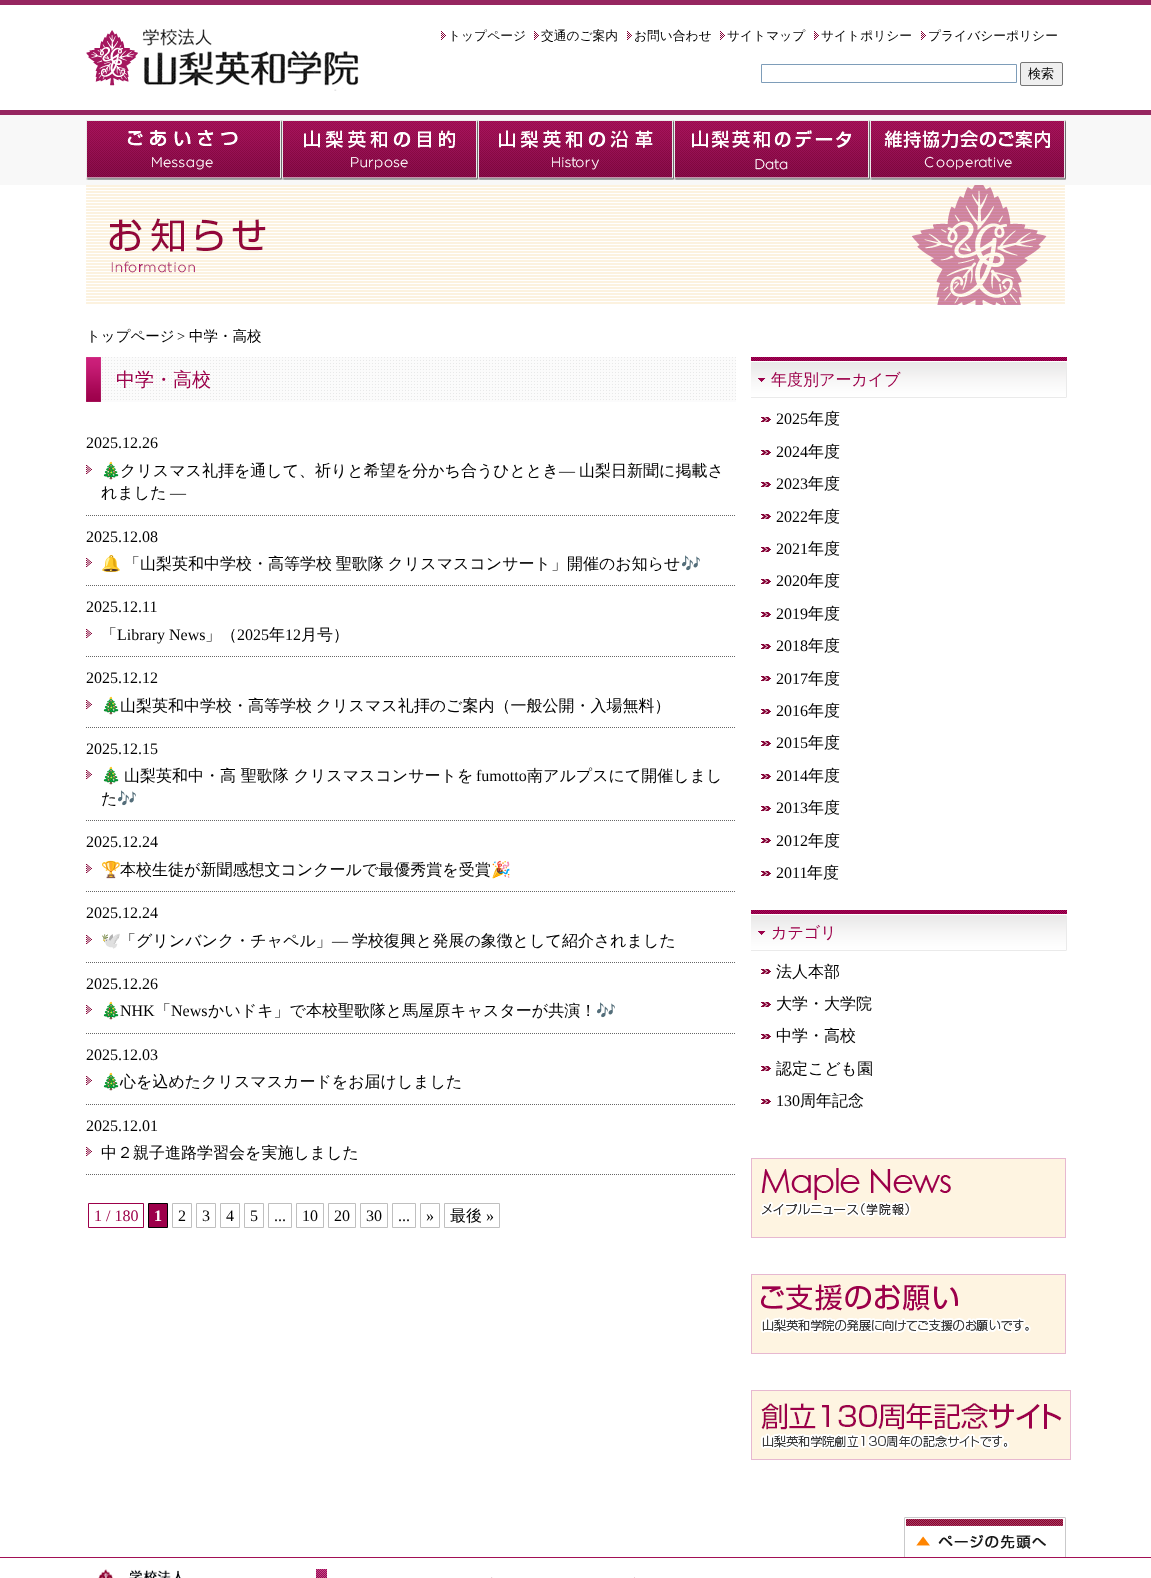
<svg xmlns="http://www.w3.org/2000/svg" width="1151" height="1578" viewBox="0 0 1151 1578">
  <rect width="100%" height="100%" fill="#fff"/>
  <path d="M0 0h1151v5H0z" fill="#962660"/>
  <path d="M0 110h1151v5H0z" fill="#962660"/>
  <image x="86" y="28" width="273" height="63" href="img/1.png"/>
  <image x="441" y="31" width="5" height="9" href="img/2.png"/>
  <image x="534" y="31" width="5" height="9" href="img/2.png"/>
  <image x="627" y="31" width="5" height="9" href="img/2.png"/>
  <image x="720" y="31" width="5" height="9" href="img/2.png"/>
  <image x="814" y="31" width="5" height="9" href="img/2.png"/>
  <image x="921" y="31" width="5" height="9" href="img/2.png"/>
  <path d="M761.5 64.5h255v18H761.5z" fill="none" stroke="#7e9db9"/>
  <rect x="1020.5" y="62.5" width="42" height="23" rx="1.5" fill="#efefef" stroke="#767676"/>
  <path d="M0 115h1151v70H0z" fill="#f8f8f8"/>
  <image x="86" y="120" width="196" height="60" href="img/3.png"/>
  <image x="282" y="120" width="196" height="60" href="img/4.png"/>
  <image x="478" y="120" width="196" height="60" href="img/5.png"/>
  <image x="674" y="120" width="196" height="60" href="img/6.png"/>
  <image x="870" y="120" width="196" height="60" href="img/7.png"/>
  <image x="86" y="185" width="979" height="120" href="img/8.png"/>
  <image x="86" y="357" width="650" height="45" href="img/9.png"/>
  <path d="M86 515.5H736" fill="none" stroke="#666" stroke-dasharray="1 1"/>
  <image x="86" y="465" width="6" height="9" href="img/10.png"/>
  <path d="M86 585.5H736" fill="none" stroke="#666" stroke-dasharray="1 1"/>
  <image x="86" y="558" width="6" height="9" href="img/10.png"/>
  <path d="M86 656.5H736" fill="none" stroke="#666" stroke-dasharray="1 1"/>
  <image x="86" y="629" width="6" height="9" href="img/10.png"/>
  <path d="M86 727.5H736" fill="none" stroke="#666" stroke-dasharray="1 1"/>
  <image x="86" y="700" width="6" height="9" href="img/10.png"/>
  <path d="M86 820.5H736" fill="none" stroke="#666" stroke-dasharray="1 1"/>
  <image x="86" y="770" width="6" height="9" href="img/10.png"/>
  <path d="M86 891.5H736" fill="none" stroke="#666" stroke-dasharray="1 1"/>
  <image x="86" y="864" width="6" height="9" href="img/10.png"/>
  <path d="M86 962.5H736" fill="none" stroke="#666" stroke-dasharray="1 1"/>
  <image x="86" y="935" width="6" height="9" href="img/10.png"/>
  <path d="M86 1033.5H736" fill="none" stroke="#666" stroke-dasharray="1 1"/>
  <image x="86" y="1005" width="6" height="9" href="img/10.png"/>
  <path d="M86 1104.5H736" fill="none" stroke="#666" stroke-dasharray="1 1"/>
  <image x="86" y="1076" width="6" height="9" href="img/10.png"/>
  <path d="M86 1174.5H736" fill="none" stroke="#666" stroke-dasharray="1 1"/>
  <image x="86" y="1147" width="6" height="9" href="img/10.png"/>
  <path d="M88.5 1203.5h55v24H88.5z" fill="none" stroke="#9c004a"/>
  <path d="M148.5 1203.5h19v24H148.5z" fill="#9c004a" stroke="#000"/>
  <path d="M172.5 1203.5h19v24H172.5z" fill="none" stroke="#bfbfbf"/>
  <path d="M196.5 1203.5h19v24H196.5z" fill="none" stroke="#bfbfbf"/>
  <path d="M220.5 1203.5h19v24H220.5z" fill="none" stroke="#bfbfbf"/>
  <path d="M244.5 1203.5h19v24H244.5z" fill="none" stroke="#bfbfbf"/>
  <path d="M268.5 1203.5h23v24H268.5z" fill="none" stroke="#bfbfbf"/>
  <path d="M296.5 1203.5h27v24H296.5z" fill="none" stroke="#bfbfbf"/>
  <path d="M328.5 1203.5h27v24H328.5z" fill="none" stroke="#bfbfbf"/>
  <path d="M360.5 1203.5h27v24H360.5z" fill="none" stroke="#bfbfbf"/>
  <path d="M392.5 1203.5h23v24H392.5z" fill="none" stroke="#bfbfbf"/>
  <path d="M420.5 1203.5h19v24H420.5z" fill="none" stroke="#bfbfbf"/>
  <path d="M444.5 1203.5h55v24H444.5z" fill="none" stroke="#bfbfbf"/>
  <image x="751" y="357" width="316" height="41" href="img/11.png"/>
  <image x="761" y="417" width="10" height="5" href="img/12.png"/>
  <image x="761" y="450" width="10" height="5" href="img/12.png"/>
  <image x="761" y="482" width="10" height="5" href="img/12.png"/>
  <image x="761" y="514" width="10" height="5" href="img/12.png"/>
  <image x="761" y="547" width="10" height="5" href="img/12.png"/>
  <image x="761" y="579" width="10" height="5" href="img/12.png"/>
  <image x="761" y="612" width="10" height="5" href="img/12.png"/>
  <image x="761" y="644" width="10" height="5" href="img/12.png"/>
  <image x="761" y="676" width="10" height="5" href="img/12.png"/>
  <image x="761" y="709" width="10" height="5" href="img/12.png"/>
  <image x="761" y="741" width="10" height="5" href="img/12.png"/>
  <image x="761" y="774" width="10" height="5" href="img/12.png"/>
  <image x="761" y="806" width="10" height="5" href="img/12.png"/>
  <image x="761" y="838" width="10" height="5" href="img/12.png"/>
  <image x="761" y="871" width="10" height="5" href="img/12.png"/>
  <image x="751" y="910" width="316" height="41" href="img/11.png"/>
  <image x="761" y="969" width="10" height="5" href="img/12.png"/>
  <image x="761" y="1002" width="10" height="5" href="img/12.png"/>
  <image x="761" y="1034" width="10" height="5" href="img/12.png"/>
  <image x="761" y="1066" width="10" height="5" href="img/12.png"/>
  <image x="761" y="1099" width="10" height="5" href="img/12.png"/>
  <image x="751" y="1158" width="315" height="80" href="img/13.png"/>
  <image x="751" y="1274" width="315" height="80" href="img/14.png"/>
  <image x="751" y="1390" width="320" height="70" href="img/15.png"/>
  <path d="M0 1557h1151v1H0z" fill="#a20f55"/>
  <image x="904" y="1517" width="162" height="40" href="img/16.png"/>
  <image x="98" y="1569" width="83" height="9" href="img/17.png"/>
  <image x="316" y="1569" width="11" height="9" href="img/18.png"/>
  <image x="491" y="1577" width="2" height="1" href="img/19.png"/>
  <path d="M634 1577h1v1H634z" fill="#ead3da"/>
  <g font-family="WenQuanYi Zen Hei" font-size="12.75" font-weight="500" fill="#000">
    <text x="448" y="40">トップページ</text>
    <text x="541" y="40">交通のご案内</text>
    <text x="634" y="40">お問い合わせ</text>
    <text x="727" y="40">サイトマップ</text>
    <text x="821" y="40">サイトポリシー</text>
    <text x="928" y="40">プライバシーポリシー</text>
  </g>
  <text x="1028" y="78" font-family="WenQuanYi Zen Hei" font-size="13" font-weight="500" fill="#000">検索</text>
  <text x="86" y="341" font-family="WenQuanYi Zen Hei" font-size="14.5" font-weight="500" fill="#000">トップページ</text>
  <text x="177" y="341" font-family="Liberation Serif" font-size="14.5" fill="#000">&gt;</text>
  <text x="189" y="341" font-family="WenQuanYi Zen Hei" font-size="14.5" font-weight="500" fill="#000">中学・高校</text>
  <text x="116" y="386" font-family="WenQuanYi Zen Hei" font-size="19" font-weight="500" fill="#9c004a">中学・高校</text>
  <text x="86" y="448" font-family="Liberation Serif" font-size="16" fill="#000">2025.12.26</text>
  <text x="101" y="476" font-family="Noto Color Emoji" font-size="16" fill="#000">🎄</text>
  <text x="120" y="476" font-family="WenQuanYi Zen Hei" font-size="16" font-weight="500" fill="#000">クリスマス礼拝を通して、祈りと希望を分かち合うひととき</text>
  <text x="559" y="476" font-family="Liberation Serif" font-size="16" fill="#000">—</text>
  <g font-family="WenQuanYi Zen Hei" font-size="16" font-weight="500" fill="#000">
    <text x="579" y="476">山梨日新聞に掲載さ</text>
    <text x="101" y="498">れました</text>
  </g>
  <g font-family="Liberation Serif" font-size="16" fill="#000">
    <text x="170" y="498">—</text>
    <text x="86" y="542">2025.12.08</text>
  </g>
  <text x="101" y="569" font-family="Noto Color Emoji" font-size="16" fill="#000">🔔</text>
  <text x="124" y="569" word-spacing="-1" font-family="WenQuanYi Zen Hei" font-size="16" font-weight="500" fill="#000">「山梨英和中学校・高等学校 聖歌隊 クリスマスコンサート」開催のお知らせ</text>
  <text x="681" y="569" font-family="Noto Color Emoji" font-size="16" fill="#000">🎶</text>
  <text x="86" y="612" font-family="Liberation Serif" font-size="16" fill="#000">2025.12.11</text>
  <text x="101" y="640" font-family="WenQuanYi Zen Hei" font-size="16" font-weight="500" fill="#000">「</text>
  <text x="117" y="640" font-family="Liberation Serif" font-size="16" fill="#000">Library News</text>
  <text x="205" y="640" font-family="WenQuanYi Zen Hei" font-size="16" font-weight="500" fill="#000">」（</text>
  <text x="237" y="640" font-family="Liberation Serif" font-size="16" fill="#000">2025</text>
  <text x="269" y="640" font-family="WenQuanYi Zen Hei" font-size="16" font-weight="500" fill="#000">年</text>
  <text x="285" y="640" font-family="Liberation Serif" font-size="16" fill="#000">12</text>
  <text x="301" y="640" font-family="WenQuanYi Zen Hei" font-size="16" font-weight="500" fill="#000">月号）</text>
  <text x="86" y="683" font-family="Liberation Serif" font-size="16" fill="#000">2025.12.12</text>
  <text x="101" y="711" font-family="Noto Color Emoji" font-size="16" fill="#000">🎄</text>
  <text x="120" y="711" word-spacing="-1" font-family="WenQuanYi Zen Hei" font-size="16" font-weight="500" fill="#000">山梨英和中学校・高等学校 クリスマス礼拝のご案内（一般公開・入場無料）</text>
  <text x="86" y="754" font-family="Liberation Serif" font-size="16" fill="#000">2025.12.15</text>
  <text x="101" y="781" font-family="Noto Color Emoji" font-size="16" fill="#000">🎄</text>
  <text x="124" y="781" font-family="WenQuanYi Zen Hei" font-size="16" font-weight="500" fill="#000">山梨英和中・高 聖歌隊 クリスマスコンサートを</text>
  <text x="476" y="781" font-family="Liberation Serif" font-size="16" fill="#000">fumotto</text>
  <g font-family="WenQuanYi Zen Hei" font-size="16" font-weight="500" fill="#000">
    <text x="527" y="781">南アルプスにて開催しまし</text>
    <text x="101" y="804">た</text>
  </g>
  <text x="117" y="804" font-family="Noto Color Emoji" font-size="16" fill="#000">🎶</text>
  <text x="86" y="847" font-family="Liberation Serif" font-size="16" fill="#000">2025.12.24</text>
  <text x="101" y="875" font-family="Noto Color Emoji" font-size="16" fill="#000">🏆</text>
  <text x="120" y="875" font-family="WenQuanYi Zen Hei" font-size="16" font-weight="500" fill="#000">本校生徒が新聞感想文コンクールで最優秀賞を受賞</text>
  <text x="491" y="875" font-family="Noto Color Emoji" font-size="16" fill="#000">🎉</text>
  <text x="86" y="918" font-family="Liberation Serif" font-size="16" fill="#000">2025.12.24</text>
  <text x="101" y="946" font-family="Noto Color Emoji" font-size="16" fill="#000">🕊️</text>
  <text x="120" y="946" font-family="WenQuanYi Zen Hei" font-size="16" font-weight="500" fill="#000">「グリンバンク・チャペル」</text>
  <text x="332" y="946" font-family="Liberation Serif" font-size="16" fill="#000">—</text>
  <text x="352" y="946" font-family="WenQuanYi Zen Hei" font-size="16" font-weight="500" fill="#000">学校復興と発展の象徴として紹介されました</text>
  <text x="86" y="989" font-family="Liberation Serif" font-size="16" fill="#000">2025.12.26</text>
  <text x="101" y="1016" font-family="Noto Color Emoji" font-size="16" fill="#000">🎄</text>
  <text x="120" y="1016" font-family="Liberation Serif" font-size="16" fill="#000">NHK</text>
  <text x="155" y="1016" font-family="WenQuanYi Zen Hei" font-size="16" font-weight="500" fill="#000">「</text>
  <text x="171" y="1016" font-family="Liberation Serif" font-size="16" fill="#000">News</text>
  <text x="208" y="1016" font-family="WenQuanYi Zen Hei" font-size="16" font-weight="500" fill="#000">かいドキ」で本校聖歌隊と馬屋原キャスターが共演！</text>
  <text x="596" y="1016" font-family="Noto Color Emoji" font-size="16" fill="#000">🎶</text>
  <text x="86" y="1060" font-family="Liberation Serif" font-size="16" fill="#000">2025.12.03</text>
  <text x="101" y="1087" font-family="Noto Color Emoji" font-size="16" fill="#000">🎄</text>
  <text x="120" y="1087" font-family="WenQuanYi Zen Hei" font-size="16" font-weight="500" fill="#000">心を込めたクリスマスカードをお届けしました</text>
  <text x="86" y="1131" font-family="Liberation Serif" font-size="16" fill="#000">2025.12.01</text>
  <text x="101" y="1158" font-family="WenQuanYi Zen Hei" font-size="16" font-weight="500" fill="#000">中２親子進路学習会を実施しました</text>
  <text x="94" y="1221" font-family="Liberation Serif" font-size="16" fill="#9c004a">1 / 180</text>
  <text x="154" y="1221" font-family="Liberation Serif" font-size="16" font-weight="bold" fill="#fff">1</text>
  <g font-family="Liberation Serif" font-size="16" fill="#000">
    <text x="178" y="1221">2</text>
    <text x="202" y="1221">3</text>
    <text x="226" y="1221">4</text>
    <text x="250" y="1221">5</text>
    <text x="274" y="1221">...</text>
    <text x="302" y="1221">10</text>
    <text x="334" y="1221">20</text>
    <text x="366" y="1221">30</text>
    <text x="398" y="1221">...</text>
    <text x="426" y="1221">»</text>
  </g>
  <text x="450" y="1221" font-family="WenQuanYi Zen Hei" font-size="16" font-weight="500" fill="#000">最後</text>
  <text x="486" y="1221" font-family="Liberation Serif" font-size="16" fill="#000">»</text>
  <text x="771" y="385" font-family="WenQuanYi Zen Hei" font-size="16" font-weight="500" fill="#9c004a">年度別アーカイブ</text>
  <text x="776" y="424" font-family="Liberation Serif" font-size="16" fill="#000">2025</text>
  <text x="808" y="424" font-family="WenQuanYi Zen Hei" font-size="16" font-weight="500" fill="#000">年度</text>
  <text x="776" y="457" font-family="Liberation Serif" font-size="16" fill="#000">2024</text>
  <text x="808" y="457" font-family="WenQuanYi Zen Hei" font-size="16" font-weight="500" fill="#000">年度</text>
  <text x="776" y="489" font-family="Liberation Serif" font-size="16" fill="#000">2023</text>
  <text x="808" y="489" font-family="WenQuanYi Zen Hei" font-size="16" font-weight="500" fill="#000">年度</text>
  <text x="776" y="522" font-family="Liberation Serif" font-size="16" fill="#000">2022</text>
  <text x="808" y="522" font-family="WenQuanYi Zen Hei" font-size="16" font-weight="500" fill="#000">年度</text>
  <text x="776" y="554" font-family="Liberation Serif" font-size="16" fill="#000">2021</text>
  <text x="808" y="554" font-family="WenQuanYi Zen Hei" font-size="16" font-weight="500" fill="#000">年度</text>
  <text x="776" y="586" font-family="Liberation Serif" font-size="16" fill="#000">2020</text>
  <text x="808" y="586" font-family="WenQuanYi Zen Hei" font-size="16" font-weight="500" fill="#000">年度</text>
  <text x="776" y="619" font-family="Liberation Serif" font-size="16" fill="#000">2019</text>
  <text x="808" y="619" font-family="WenQuanYi Zen Hei" font-size="16" font-weight="500" fill="#000">年度</text>
  <text x="776" y="651" font-family="Liberation Serif" font-size="16" fill="#000">2018</text>
  <text x="808" y="651" font-family="WenQuanYi Zen Hei" font-size="16" font-weight="500" fill="#000">年度</text>
  <text x="776" y="684" font-family="Liberation Serif" font-size="16" fill="#000">2017</text>
  <text x="808" y="684" font-family="WenQuanYi Zen Hei" font-size="16" font-weight="500" fill="#000">年度</text>
  <text x="776" y="716" font-family="Liberation Serif" font-size="16" fill="#000">2016</text>
  <text x="808" y="716" font-family="WenQuanYi Zen Hei" font-size="16" font-weight="500" fill="#000">年度</text>
  <text x="776" y="748" font-family="Liberation Serif" font-size="16" fill="#000">2015</text>
  <text x="808" y="748" font-family="WenQuanYi Zen Hei" font-size="16" font-weight="500" fill="#000">年度</text>
  <text x="776" y="781" font-family="Liberation Serif" font-size="16" fill="#000">2014</text>
  <text x="808" y="781" font-family="WenQuanYi Zen Hei" font-size="16" font-weight="500" fill="#000">年度</text>
  <text x="776" y="813" font-family="Liberation Serif" font-size="16" fill="#000">2013</text>
  <text x="808" y="813" font-family="WenQuanYi Zen Hei" font-size="16" font-weight="500" fill="#000">年度</text>
  <text x="776" y="846" font-family="Liberation Serif" font-size="16" fill="#000">2012</text>
  <text x="808" y="846" font-family="WenQuanYi Zen Hei" font-size="16" font-weight="500" fill="#000">年度</text>
  <text x="776" y="878" font-family="Liberation Serif" font-size="16" fill="#000">2011</text>
  <text x="807" y="878" font-family="WenQuanYi Zen Hei" font-size="16" font-weight="500" fill="#000">年度</text>
  <text x="771" y="938" font-family="WenQuanYi Zen Hei" font-size="16" font-weight="500" fill="#9c004a">カテゴリ</text>
  <g font-family="WenQuanYi Zen Hei" font-size="16" font-weight="500" fill="#000">
    <text x="776" y="977">法人本部</text>
    <text x="776" y="1009">大学・大学院</text>
    <text x="776" y="1041">中学・高校</text>
    <text x="776" y="1074">認定こども園</text>
  </g>
  <text x="776" y="1106" font-family="Liberation Serif" font-size="16" fill="#000">130</text>
  <text x="800" y="1106" font-family="WenQuanYi Zen Hei" font-size="16" font-weight="500" fill="#000">周年記念</text>
</svg>
